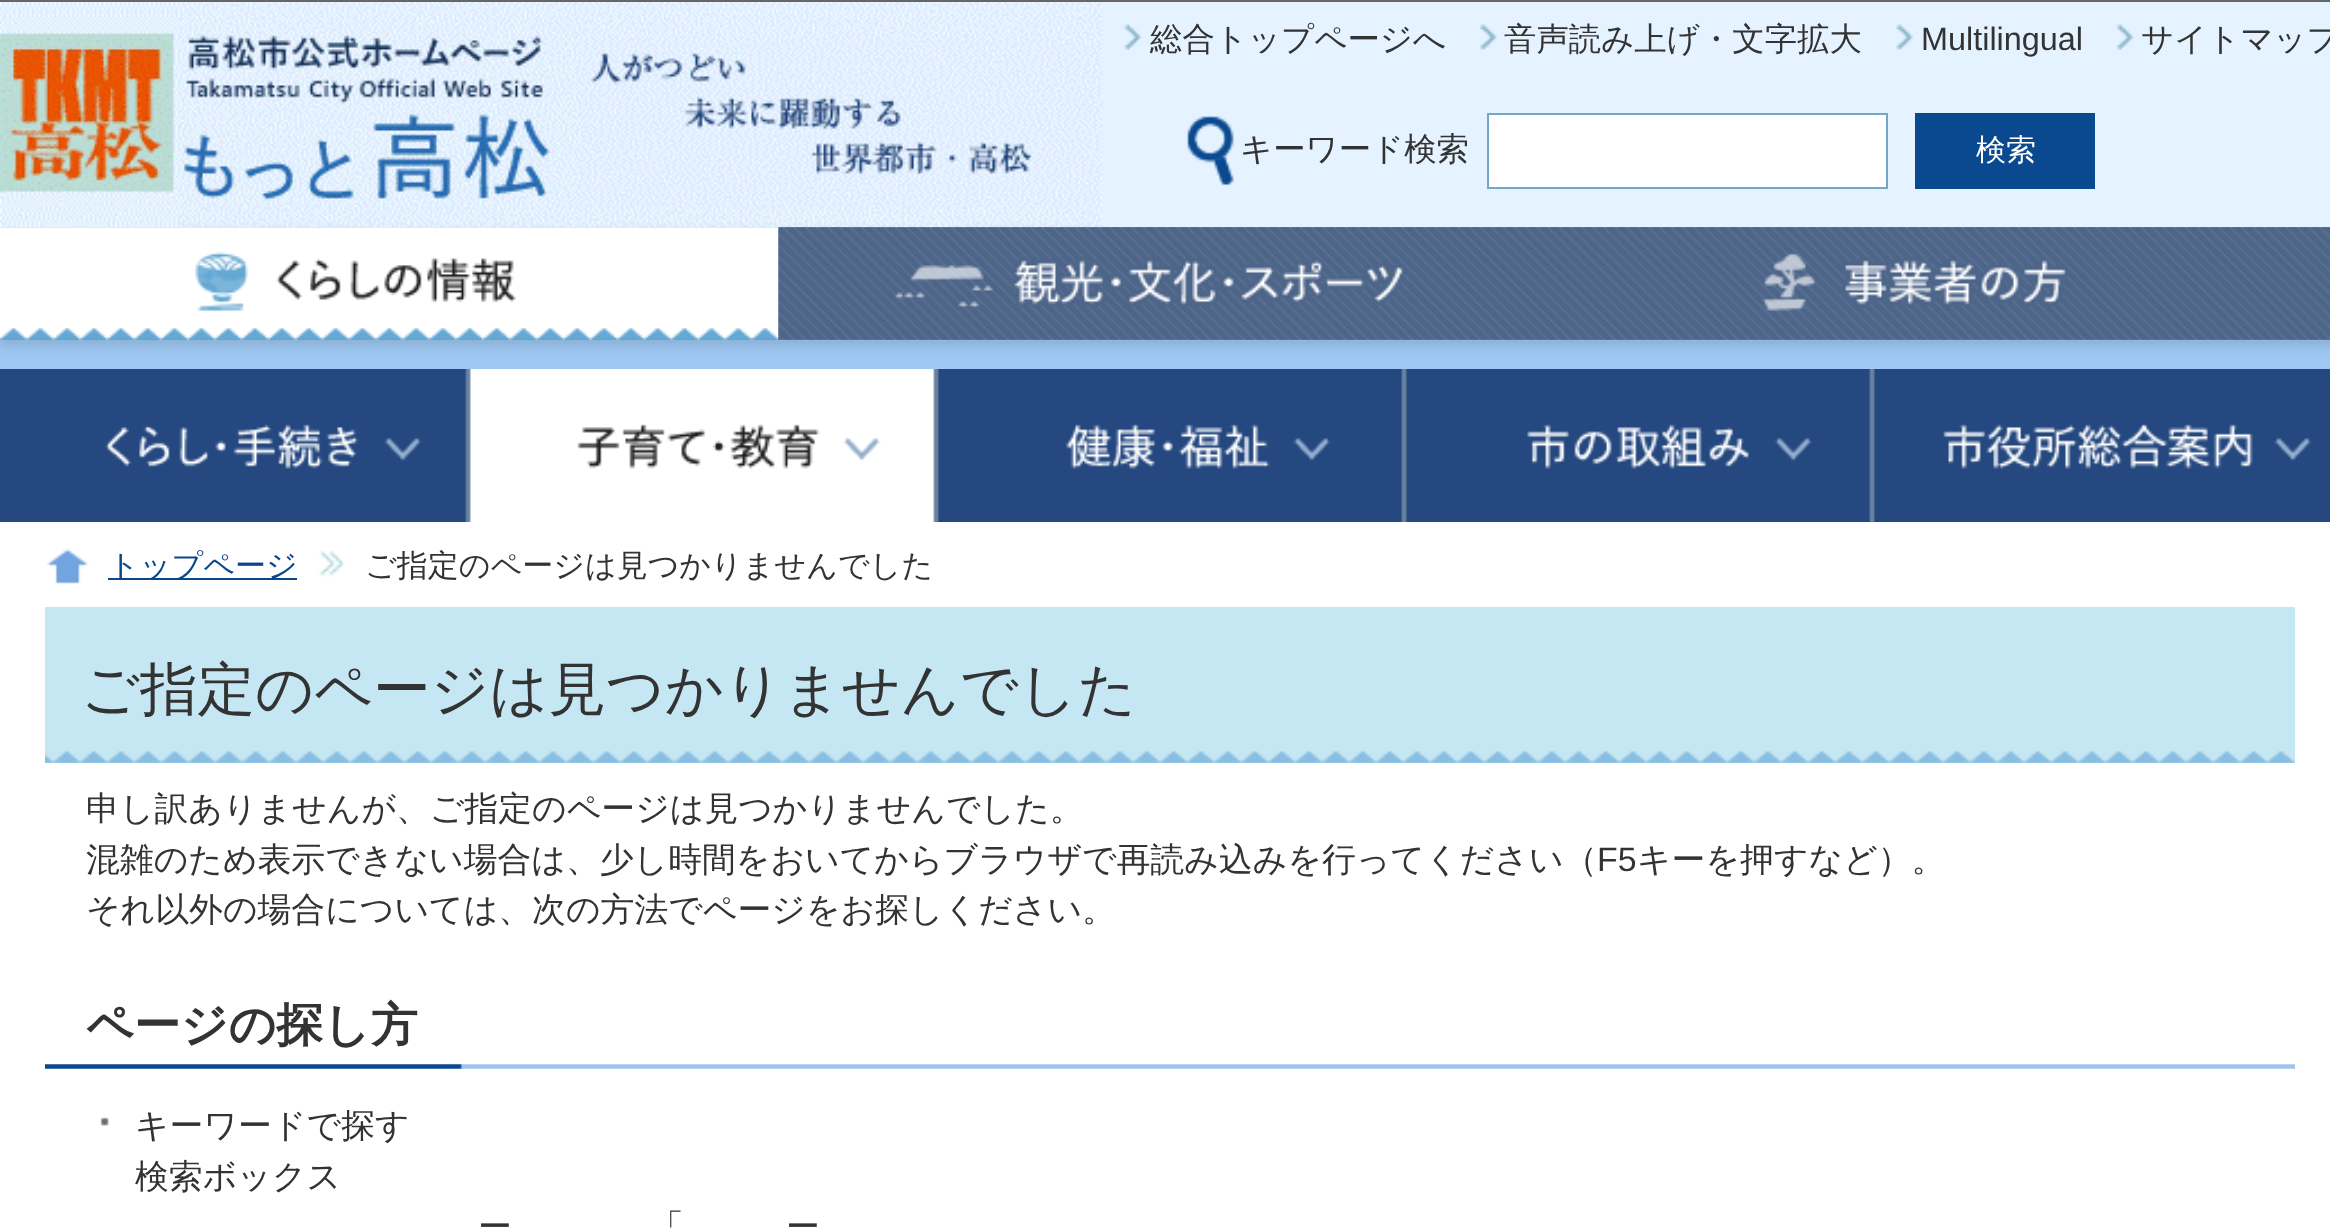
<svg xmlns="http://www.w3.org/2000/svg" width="2330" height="1230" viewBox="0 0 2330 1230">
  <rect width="100%" height="100%" fill="#9fc9f4"/>
  <path d="M-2 2h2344v345H-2z" fill="#8db1d7" filter="blur(5.5px)"/>
  <path d="M0 0h2330v2H0z" fill="#666"/>
  <path d="M0 2h2330v338H0z" fill="#e5f2ff"/>
  <image x="0" y="227" width="2330" height="113" href="img/7.png"/>
  <image x="0" y="2" width="1103" height="226" href="img/1.png"/>
  <image x="1124" y="24" width="18" height="26" href="img/2.png"/>
  <image x="1480" y="24" width="17" height="26" href="img/3.png"/>
  <image x="1896" y="24" width="17" height="26" href="img/4.png"/>
  <image x="2116" y="24" width="18" height="26" href="img/5.png"/>
  <image x="1187" y="116" width="47" height="70" href="img/6.png"/>
  <path d="M1488 114h399v74H1488z" fill="#fff" stroke="#74a6c8" stroke-width="2"/>
  <path d="M1915 113h180v76H1915z" fill="#0a498f"/>
  <image x="0" y="227" width="779" height="113" href="img/8.png"/>
  <image x="778" y="227" width="779" height="113" href="img/9.png"/>
  <image x="1557" y="227" width="773" height="113" href="img/10.png"/>
  <path d="M0 522h2330v708H0z" fill="#fff"/>
  <image x="0" y="369" width="468" height="153" href="img/11.png"/>
  <image x="468" y="369" width="468" height="153" href="img/12.png"/>
  <image x="936" y="369" width="468" height="153" href="img/13.png"/>
  <image x="1404" y="369" width="468" height="153" href="img/14.png"/>
  <image x="1872" y="369" width="458" height="153" href="img/15.png"/>
  <image x="46" y="548" width="43" height="36" href="img/16.png"/>
  <image x="319" y="550" width="26" height="27" href="img/17.png"/>
  <path d="M108 578h189v2H108z" fill="#0a468c"/>
  <path d="M45 607h2250v156H45z" fill="#c5e6f3"/>
  <image x="45" y="751" width="2250" height="12" href="img/18.png"/>
  <image x="45" y="1064" width="2250" height="5" href="img/19.png"/>
  <image x="100" y="1117" width="9" height="9" href="img/20.png"/>
  <g font-family="WenQuanYi Zen Hei" font-size="32.4" font-weight="500" fill="#333">
    <text x="1150" y="50">総合トップページへ</text>
    <text x="1504" y="50">音声読み上げ・文字拡大</text>
  </g>
  <text x="1921" y="50" font-family="Liberation Sans" font-size="32.4" fill="#333">Multilingual</text>
  <g font-family="WenQuanYi Zen Hei" font-size="32.4" font-weight="500" fill="#333">
    <text x="2141" y="50">サイトマップ</text>
    <text x="1240" y="160">キーワード検索</text>
  </g>
  <text x="1976" y="160" font-family="WenQuanYi Zen Hei" font-size="30" font-weight="500" fill="#fff">検索</text>
  <text x="108" y="576" font-family="WenQuanYi Zen Hei" font-size="31" font-weight="500" fill="#0a468c">トップページ</text>
  <text x="365" y="576" font-family="WenQuanYi Zen Hei" font-size="31" font-weight="500" fill="#333">ご指定のページは見つかりませんでした</text>
  <text x="81" y="709" font-family="WenQuanYi Zen Hei" font-size="57.6" font-weight="500" fill="#333">ご指定のページは見つかりませんでした</text>
  <g font-family="WenQuanYi Zen Hei" font-size="33.85" font-weight="500" fill="#333">
    <text x="86" y="820">申し訳ありませんが、ご指定のページは見つかりませんでした。</text>
    <text x="86" y="871">混雑のため表示できない場合は、少し時間をおいてからブラウザで再読み込みを行ってください（</text>
  </g>
  <text x="1597" y="871" font-family="Liberation Sans" font-size="33.85" fill="#333">F5</text>
  <g font-family="WenQuanYi Zen Hei" font-size="33.85" font-weight="500" fill="#333">
    <text x="1637" y="871">キーを押すなど）。</text>
    <text x="86" y="921">それ以外の場合については、次の方法でページをお探しください。</text>
  </g>
  <text x="86" y="1041" font-family="WenQuanYi Zen Hei" font-size="46.75" font-weight="bold" fill="#333">ページの探し方</text>
  <g font-family="WenQuanYi Zen Hei" font-size="33.85" font-weight="500" fill="#333">
    <text x="135" y="1137">キーワードで探す</text>
    <text x="135" y="1188">検索ボックス</text>
    <text x="478" y="1238">ー</text>
    <text x="650" y="1238">「</text>
    <text x="786" y="1238">ー</text>
  </g>
</svg>
